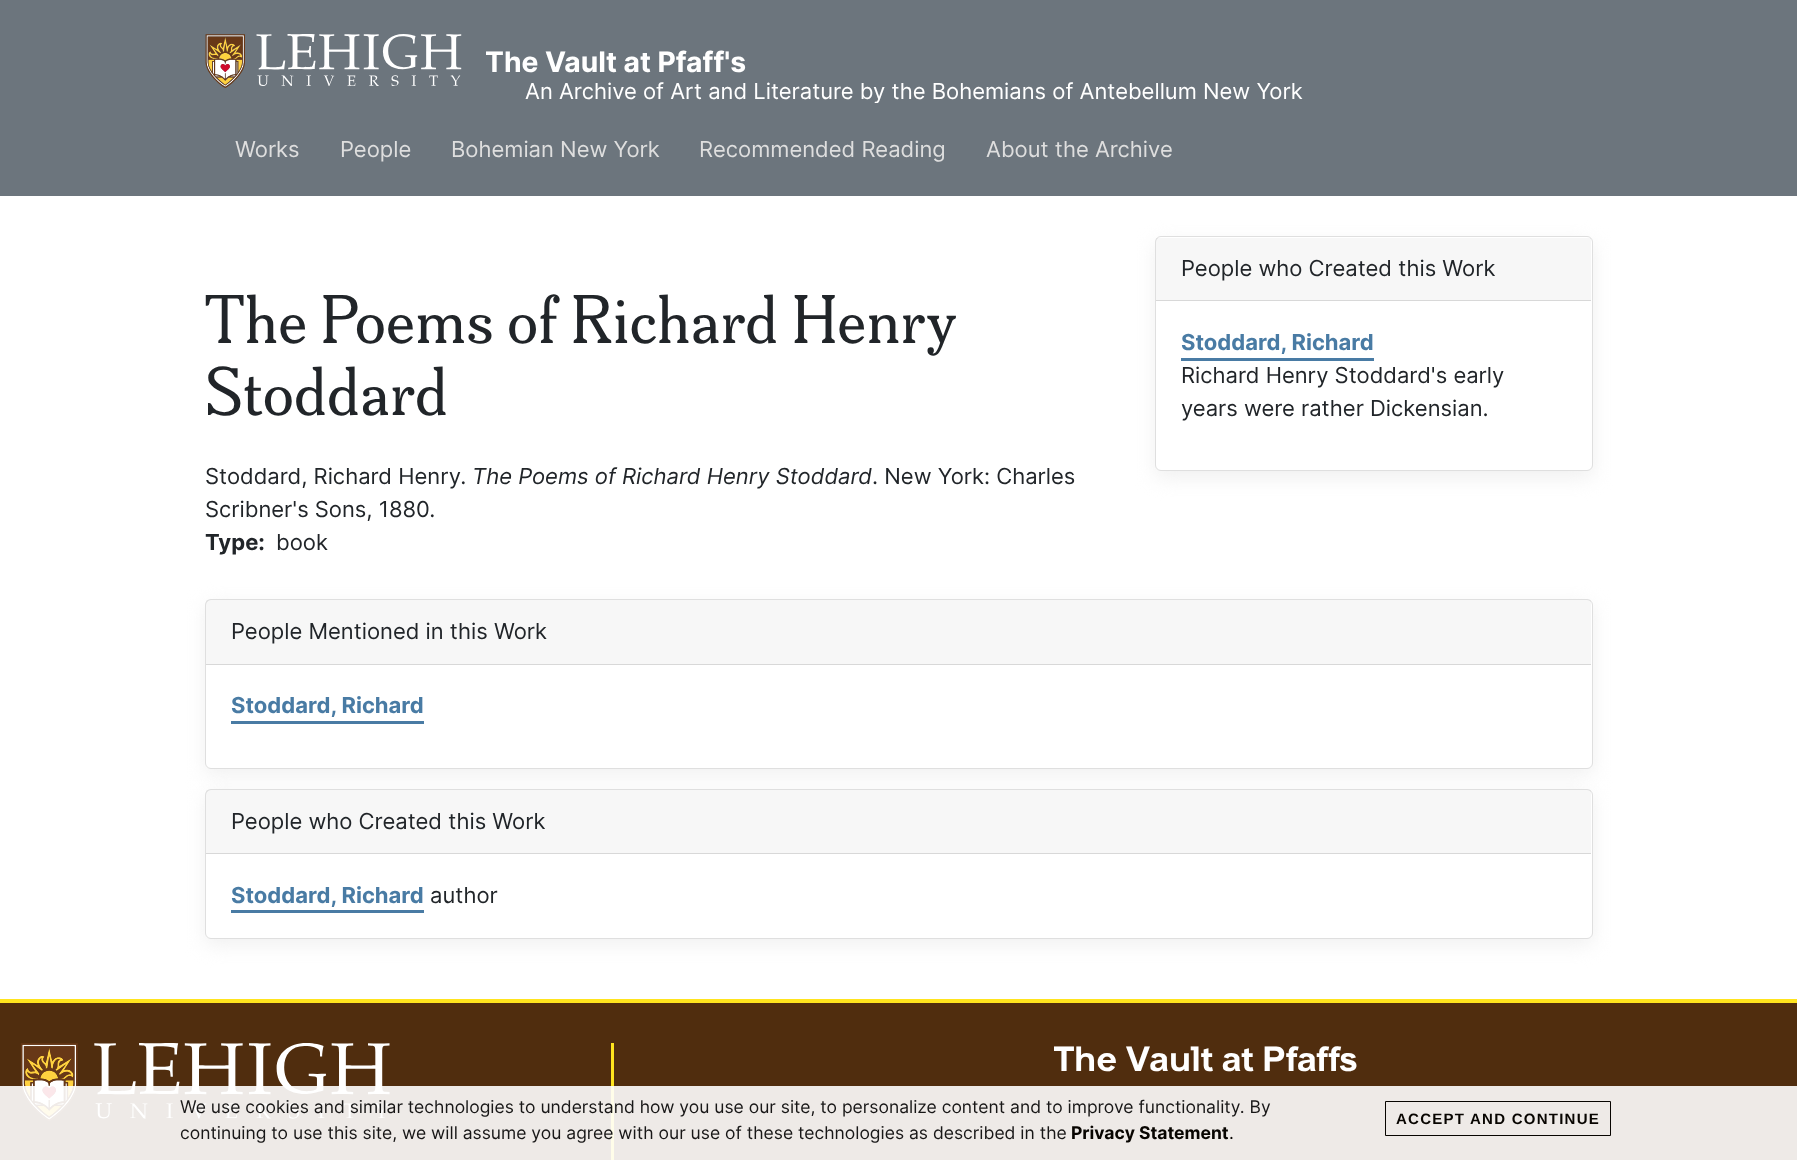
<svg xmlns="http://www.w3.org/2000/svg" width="1797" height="1160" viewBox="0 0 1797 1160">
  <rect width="100%" height="100%" fill="#fff"/>
  <path d="M0 0h1797v103H0z" fill="#6c757d"/>
  <image x="205" y="34" width="257" height="54" href="img/1.png"/>
  <rect x="1155" y="243" width="438" height="235" rx="6" fill="#f0f0f0" filter="blur(9.5px)"/>
  <rect x="1155.5" y="236.5" width="437" height="234" rx="5.5" fill="#fff" stroke="#dfdfdf"/>
  <path d="M1156 238h435v62H1156z" fill="#00000008"/>
  <path d="M1156 300h435v1H1156z" fill="#d8d8d8"/>
  <path d="M1181 358h193v3H1181z" fill="#497ba4"/>
  <rect x="205" y="605" width="1388" height="170" rx="6" fill="#f0f0f0" filter="blur(9.5px)"/>
  <rect x="205.5" y="599.5" width="1387" height="169" rx="5.5" fill="#fff" stroke="#dfdfdf"/>
  <path d="M206 600h1385v64H206z" fill="#00000008"/>
  <path d="M206 664h1385v1H206z" fill="#d8d8d8"/>
  <path d="M231 721h193v3H231z" fill="#497ba4"/>
  <rect x="205" y="795" width="1388" height="150" rx="6" fill="#f0f0f0" filter="blur(9.5px)"/>
  <rect x="205.5" y="789.5" width="1387" height="149" rx="5.5" fill="#fff" stroke="#dfdfdf"/>
  <path d="M206 790h1385v63H206z" fill="#00000008"/>
  <path d="M206 853h1385v1H206z" fill="#d8d8d8"/>
  <path d="M231 910h193v3H231z" fill="#497ba4"/>
  <path d="M0 1003h1797v157H0z" fill="#502d0e"/>
  <path d="M0 999h1797v4H0z" fill="#ffe41e"/>
  <image x="20" y="1043" width="370" height="79" href="img/2.png"/>
  <path d="M611 1043h3v117H611z" fill="#ffe41e"/>
  <path d="M0 1086h1797v74H0z" fill="#ffffffe6"/>
  <path d="M1385.5 1101.5h225v34H1385.5z" fill="none" stroke="#080501"/>
  <text x="485" y="72" font-family="Inter" font-size="28.25" font-weight="bold" fill="#fff">The Vault at Pfaff's</text>
  <text x="525" y="99" font-family="Inter" font-size="22" fill="#fff">An Archive of Art and Literature by the Bohemians of Antebellum New York</text>
  <path d="M0 103h1797v93H0z" fill="#6c757d"/>
  <g font-family="Inter" font-size="22" fill="#dedede">
    <text x="235" y="157">Works</text>
    <text x="340" y="157">People</text>
    <text x="451" y="157">Bohemian New York</text>
    <text x="699" y="157">Recommended Reading</text>
    <text x="986" y="157">About the Archive</text>
  </g>
  <g font-family="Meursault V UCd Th" font-size="60" font-weight="500" fill="#212529">
    <text x="205" y="343">The Poems of Richard Henry</text>
    <text x="205" y="415">Stoddard</text>
  </g>
  <text x="205" y="484" font-family="Inter" font-size="22" fill="#212529">Stoddard, Richard Henry.</text>
  <text x="472" y="484" font-family="Inter" font-size="22" font-style="italic" fill="#212529">The Poems of Richard Henry Stoddard</text>
  <g font-family="Inter" font-size="22" fill="#212529">
    <text x="872" y="484">. New York: Charles</text>
    <text x="205" y="517">Scribner's Sons, 1880.</text>
  </g>
  <text x="205" y="550" font-family="Inter" font-size="22" font-weight="bold" fill="#212529">Type:</text>
  <g font-family="Inter" font-size="22" fill="#212529">
    <text x="276" y="550">book</text>
    <text x="1181" y="276">People who Created this Work</text>
  </g>
  <text x="1181" y="350" font-family="Inter" font-size="22" font-weight="bold" fill="#497ba4">Stoddard, Richard</text>
  <g font-family="Inter" font-size="22" fill="#212529">
    <text x="1181" y="383">Richard Henry Stoddard's early</text>
    <text x="1181" y="416">years were rather Dickensian.</text>
    <text x="231" y="639">People Mentioned in this Work</text>
  </g>
  <text x="231" y="713" font-family="Inter" font-size="22" font-weight="bold" fill="#497ba4">Stoddard, Richard</text>
  <text x="231" y="829" font-family="Inter" font-size="22" fill="#212529">People who Created this Work</text>
  <text x="231" y="903" font-family="Inter" font-size="22" font-weight="bold" fill="#497ba4">Stoddard, Richard</text>
  <text x="430" y="903" font-family="Inter" font-size="22" fill="#212529">author</text>
  <text x="1054" y="1071" font-family="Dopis" font-size="35" font-weight="bold" fill="#fff">The Vault at Pfaffs</text>
  <g font-family="Inter" font-size="17.5" fill="#181717">
    <text x="180" y="1113">We use cookies and similar technologies to understand how you use our site, to personalize content and to improve functionality. By</text>
    <text x="180" y="1139">continuing to use this site, we will assume you agree with our use of these technologies as described in the</text>
  </g>
  <text x="1071" y="1139" font-family="Inter" font-size="17.5" font-weight="bold" fill="#080501">Privacy Statement</text>
  <text x="1229" y="1139" font-family="Inter" font-size="17.5" fill="#080501">.</text>
  <text x="1396" y="1124" font-family="Liberation Sans" font-size="15" font-weight="bold" letter-spacing="1.25" fill="#080501">ACCEPT AND CONTINUE</text>
</svg>
